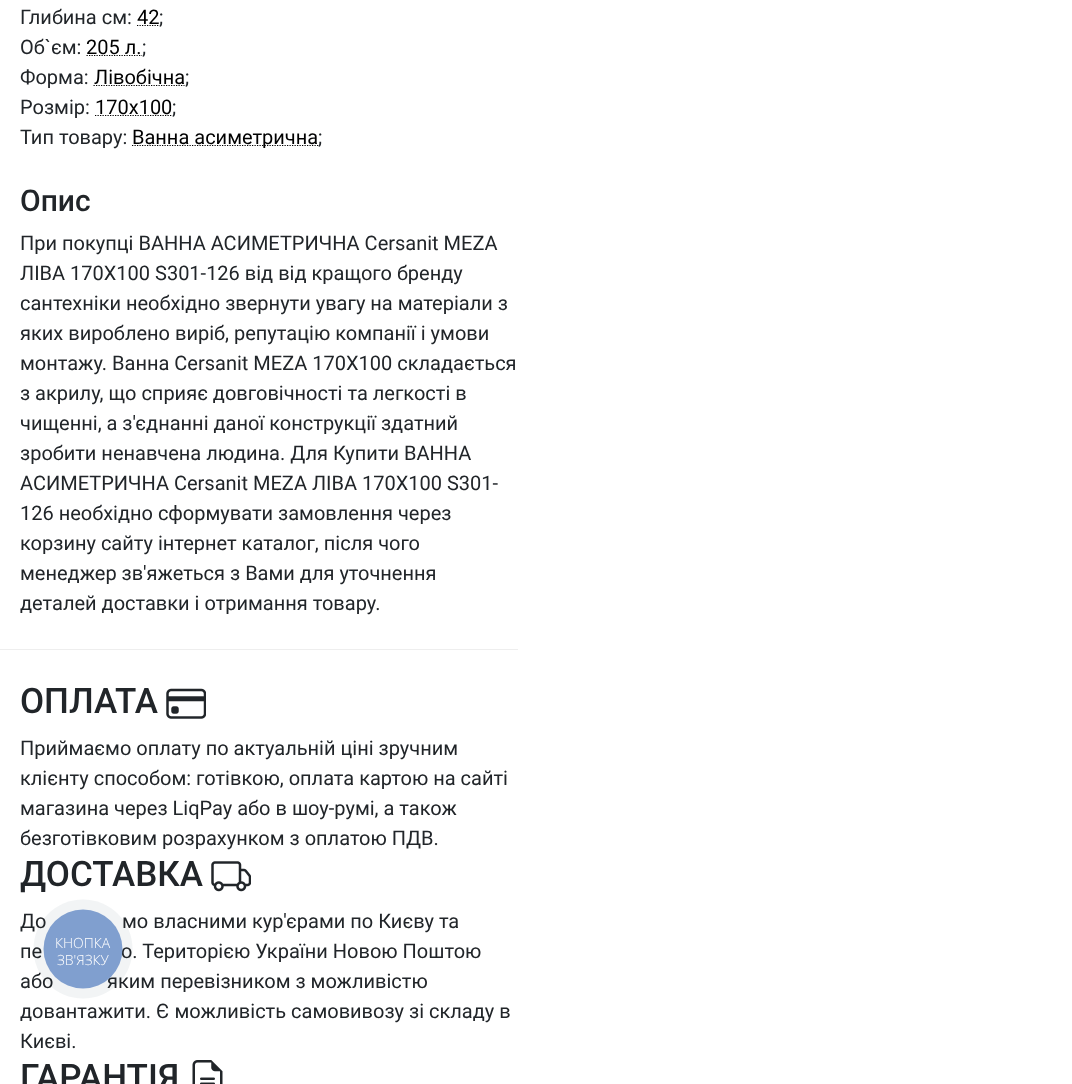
<svg xmlns="http://www.w3.org/2000/svg" width="1072" height="1084" viewBox="0 0 1072 1084">
  <rect width="100%" height="100%" fill="#fff"/>
  <path d="M137 25.5H159.5" fill="none" stroke="#000" stroke-width="1.2" stroke-dasharray="1.25 1.25"/>
  <path d="M86.5 55.5H142" fill="none" stroke="#000" stroke-width="1.2" stroke-dasharray="1.25 1.25"/>
  <path d="M93.5 85.5H184.5" fill="none" stroke="#000" stroke-width="1.2" stroke-dasharray="1.25 1.25"/>
  <path d="M95 115.5H172" fill="none" stroke="#000" stroke-width="1.2" stroke-dasharray="1.25 1.25"/>
  <path d="M132 145.5H318.5" fill="none" stroke="#000" stroke-width="1.2" stroke-dasharray="1.25 1.25"/>
  <path d="M0 649h518v1H0z" fill="#eee"/>
  <image x="166" y="688" width="40" height="31" href="img/1.png"/>
  <image x="211" y="861" width="40" height="31" href="img/2.png"/>
  <image x="192" y="1060" width="31" height="24" href="img/3.png"/>
  <circle cx="83" cy="949" r="49.5" fill="#2a405d0f"/>
  <text x="20" y="24" font-family="Roboto" font-size="20" fill="#212529">Глибина см:</text>
  <text x="137" y="24" font-family="Roboto" font-size="20" fill="#000">42</text>
  <g font-family="Roboto" font-size="20" fill="#212529">
    <text x="159" y="24">;</text>
    <text x="20" y="54">Об`єм:</text>
  </g>
  <text x="86" y="54" font-family="Roboto" font-size="20" fill="#000">205 л.</text>
  <g font-family="Roboto" font-size="20" fill="#212529">
    <text x="142" y="54">;</text>
    <text x="20" y="84">Форма:</text>
  </g>
  <text x="94" y="84" font-family="Roboto" font-size="20" fill="#000">Лівобічна</text>
  <g font-family="Roboto" font-size="20" fill="#212529">
    <text x="185" y="84">;</text>
    <text x="20" y="114">Розмір:</text>
  </g>
  <text x="95" y="114" font-family="Roboto" font-size="20" fill="#000">170x100</text>
  <g font-family="Roboto" font-size="20" fill="#212529">
    <text x="172" y="114">;</text>
    <text x="20" y="144">Тип товару:</text>
  </g>
  <text x="132" y="144" font-family="Roboto" font-size="20" fill="#000">Ванна асиметрична</text>
  <text x="318" y="144" font-family="Roboto" font-size="20" fill="#212529">;</text>
  <text x="20" y="211" font-family="Roboto" font-size="30" font-weight="500" fill="#212529">Опис</text>
  <g font-family="Roboto" font-size="20" fill="#212529">
    <text x="20" y="250">При покупці ВАННА АСИМЕТРИЧНА Cersanit MEZA</text>
    <text x="20" y="280">ЛІВА 170X100 S301-126 від від кращого бренду</text>
    <text x="20" y="310">сантехніки необхідно звернути увагу на матеріали з</text>
    <text x="20" y="340">яких вироблено виріб, репутацію компанії і умови</text>
    <text x="20" y="370">монтажу. Ванна Cersanit MEZA 170X100 складається</text>
    <text x="20" y="400">з акрилу, що сприяє довговічності та легкості в</text>
    <text x="20" y="430">чищенні, а з'єднанні даної конструкції здатний</text>
    <text x="20" y="460">зробити ненавчена людина. Для Купити ВАННА</text>
    <text x="20" y="490">АСИМЕТРИЧНА Cersanit MEZA ЛІВА 170X100 S301-</text>
    <text x="20" y="520">126 необхідно сформувати замовлення через</text>
    <text x="20" y="550">корзину сайту інтернет каталог, після чого</text>
    <text x="20" y="580">менеджер зв'яжеться з Вами для уточнення</text>
    <text x="20" y="610">деталей доставки і отримання товару.</text>
  </g>
  <text x="20" y="713" font-family="Roboto" font-size="35" font-weight="500" fill="#212529">ОПЛАТА</text>
  <g font-family="Roboto" font-size="20" fill="#212529">
    <text x="20" y="755">Приймаємо оплату по актуальній ціні зручним</text>
    <text x="20" y="785">клієнту способом: готівкою, оплата картою на сайті</text>
    <text x="20" y="815">магазина через LiqPay або в шоу-румі, а також</text>
    <text x="20" y="845">безготівковим розрахунком з оплатою ПДВ.</text>
  </g>
  <text x="20" y="886" font-family="Roboto" font-size="35" font-weight="500" fill="#212529">ДОСТАВКА</text>
  <g font-family="Roboto" font-size="20" fill="#212529">
    <text x="20" y="928">До</text>
    <text x="122" y="928">мо власними кур'єрами по Києву та</text>
    <text x="20" y="958">пе</text>
    <text x="116" y="958">ю. Територією України Новою Поштою</text>
    <text x="20" y="988">або</text>
    <text x="107" y="988">яким перевізником з можливістю</text>
    <text x="20" y="1018">довантажити. Є можливість самовивозу зі складу в</text>
    <text x="20" y="1048">Києві.</text>
  </g>
  <text x="20" y="1089" font-family="Roboto" font-size="35" font-weight="500" fill="#212529">ГАРАНТІЯ</text>
  <circle cx="83" cy="949" r="39.5" fill="#809fcf"/>
  <g font-family="Open Sans" font-size="14" font-weight="300" fill="#fff">
    <text x="55" y="948">КНОПКА</text>
    <text x="57" y="965">ЗВ'ЯЗКУ</text>
  </g>
</svg>
